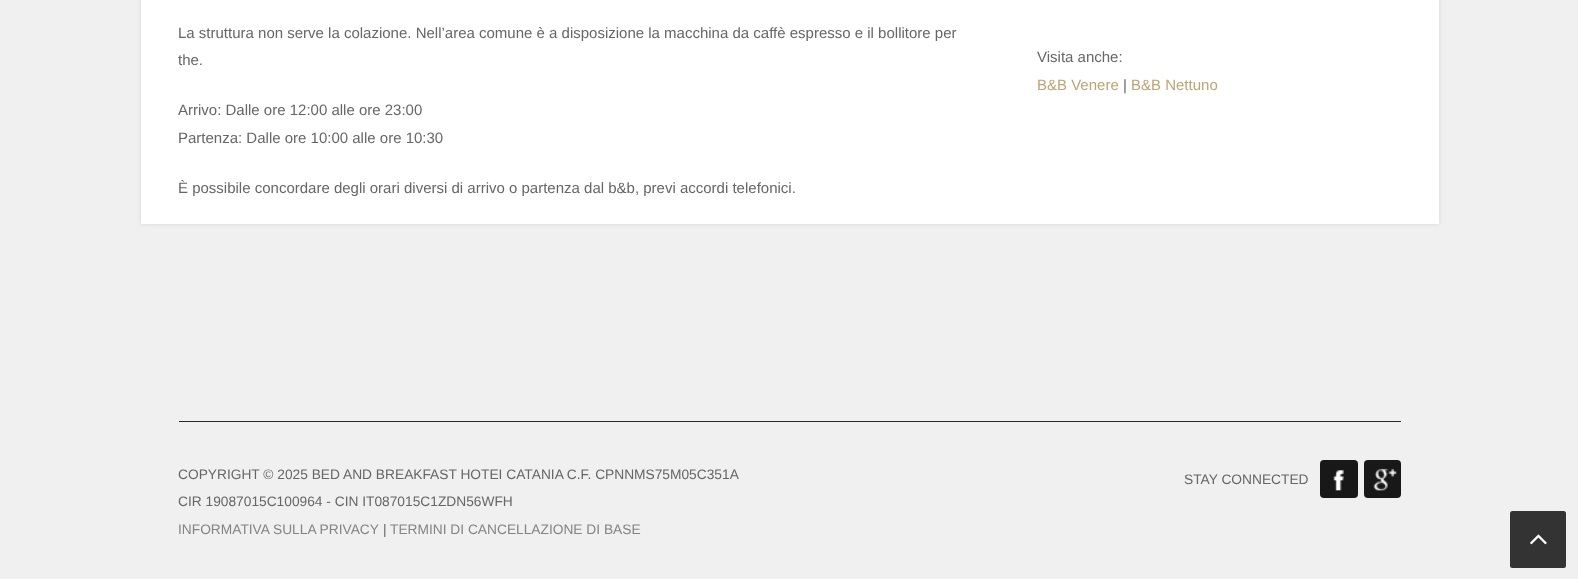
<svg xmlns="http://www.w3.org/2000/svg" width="1578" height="579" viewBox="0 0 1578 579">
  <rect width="100%" height="100%" fill="#f0f0f0"/>
  <path d="M141 -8h1298v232H141z" fill="#0000001a" filter="blur(2.5px)"/>
  <path d="M141 0h1298v224H141z" fill="#fff"/>
  <path d="M179 421h1222v1H179z" fill="#2a2a2a"/>
  <rect x="1320" y="460" width="38" height="38" rx="4" fill="#181818"/>
  <image x="1333" y="470" width="11" height="21" href="img/1.png"/>
  <rect x="1364" y="460" width="37" height="38" rx="4" fill="#181818"/>
  <image x="1373" y="468" width="24" height="23" href="img/2.png"/>
  <rect x="1510" y="511" width="56" height="57" rx="2.5" fill="#333"/>
  <image x="1530" y="534" width="17" height="11" href="img/3.png"/>
  <g font-family="Liberation Sans" font-size="15" fill="#666">
    <text x="178" y="38">La struttura non serve la colazione. Nell’area comune è a disposizione la macchina da caffè espresso e il bollitore per</text>
    <text x="178" y="65">the.</text>
    <text x="178" y="115">Arrivo: Dalle ore 12:00 alle ore 23:00</text>
    <text x="178" y="143">Partenza: Dalle ore 10:00 alle ore 10:30</text>
    <text x="178" y="193">È possibile concordare degli orari diversi di arrivo o partenza dal b&amp;b, previ accordi telefonici.</text>
    <text x="1037" y="62">Visita anche:</text>
  </g>
  <text x="1037" y="90" font-family="Liberation Sans" font-size="15" fill="#bca474">B&amp;B Venere</text>
  <text x="1123" y="90" font-family="Liberation Sans" font-size="15" fill="#666">|</text>
  <text x="1131" y="90" font-family="Liberation Sans" font-size="15" fill="#bca474">B&amp;B Nettuno</text>
  <g font-family="Liberation Sans" font-size="13.75" fill="#666">
    <text x="178" y="479">COPYRIGHT © 2025 BED AND BREAKFAST HOTEI CATANIA C.F. CPNNMS75M05C351A</text>
    <text x="178" y="506">CIR 19087015C100964 - CIN IT087015C1ZDN56WFH</text>
  </g>
  <text x="178" y="534" font-family="Liberation Sans" font-size="13.75" fill="#848484">INFORMATIVA SULLA PRIVACY</text>
  <text x="383" y="534" font-family="Liberation Sans" font-size="13.75" fill="#666">|</text>
  <text x="390" y="534" font-family="Liberation Sans" font-size="13.75" fill="#848484">TERMINI DI CANCELLAZIONE DI BASE</text>
  <text x="1184" y="484" font-family="Liberation Sans" font-size="13.75" fill="#666">STAY CONNECTED</text>
</svg>
